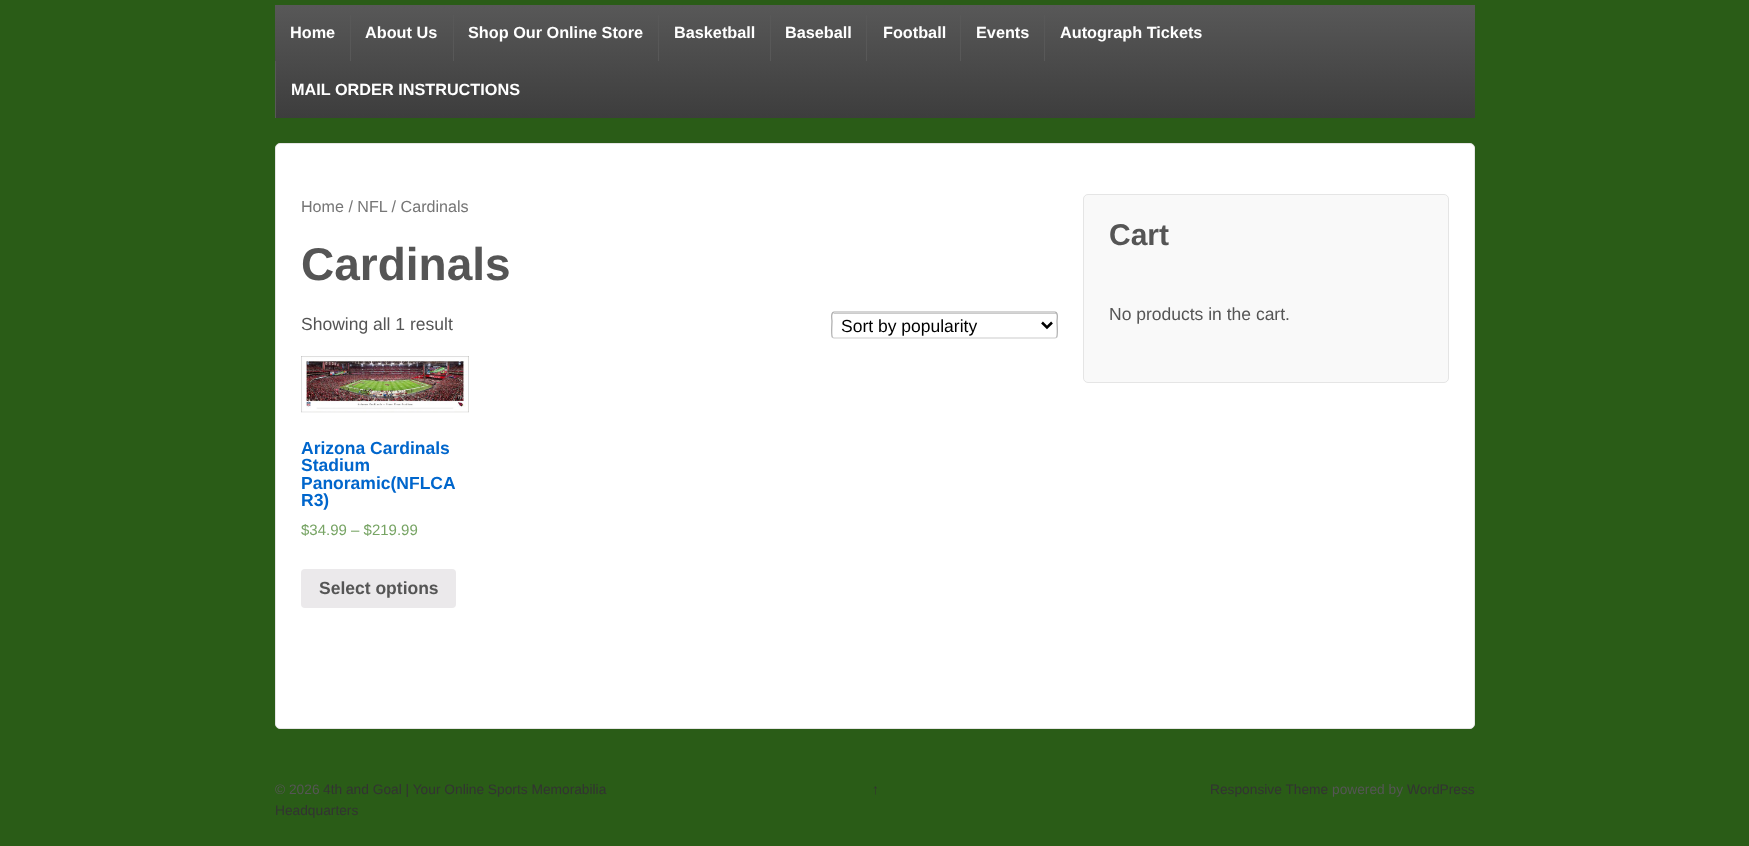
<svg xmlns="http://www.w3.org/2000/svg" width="1749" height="846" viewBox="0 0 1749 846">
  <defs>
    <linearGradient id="g1" gradientUnits="userSpaceOnUse" x1="875" y1="5" x2="875" y2="118"><stop offset="0" stop-color="#585858"/><stop offset="1" stop-color="#3d3d3d"/></linearGradient>
  </defs>
  <rect width="100%" height="100%" fill="#2a5c17"/>
  <path d="M275 5h1200v113H275z" fill="url(#g1)"/>
  <path d="M350 15h1v46H350z" fill="#585858"/>
  <path d="M453 15h1v46H453z" fill="#585858"/>
  <path d="M658 15h1v46H658z" fill="#585858"/>
  <path d="M770 15h1v46H770z" fill="#585858"/>
  <path d="M866 15h1v46H866z" fill="#585858"/>
  <path d="M960 15h1v46H960z" fill="#585858"/>
  <path d="M1044 15h1v46H1044z" fill="#585858"/>
  <path d="M275 61h1v57H275z" fill="#585858"/>
  <rect x="275.5" y="143.5" width="1199" height="585" rx="4.5" fill="#fff" stroke="#e5e5e5"/>
  <path d="M834 314H1056V315V313H834L833 314Z" fill="#ccc"/>
  <path d="M1056.5 337.5L1055 338H834L832.5 337.5" fill="none" stroke="#ccc" stroke-width="1.2"/>
  <path d="M832.5 337.5C831 336 832 324 832 321C832 320 830.5 312 834 312H1055C1058.5 312 1057 320 1057 321C1057 324 1058 336 1056.5 337.5" fill="none" stroke="#aaa" stroke-width="1.2"/>
  <path d="M1042 322.5L1047 327.5L1052 322.5" fill="none" stroke="#000" stroke-width="2.5"/>
  <image x="301" y="356" width="168" height="57" href="img/1.png"/>
  <rect x="301" y="569" width="155" height="39" rx="4" fill="#ebe9eb"/>
  <rect x="1083.5" y="194.5" width="365" height="188" rx="4.5" fill="#f9f9f9" stroke="#e5e5e5"/>
  <g font-family="Liberation Sans" font-size="16.25" font-weight="bold" fill="#fff">
    <text x="290" y="38">Home</text>
    <text x="365" y="38">About Us</text>
    <text x="468" y="38">Shop Our Online Store</text>
    <text x="674" y="38">Basketball</text>
    <text x="785" y="38">Baseball</text>
    <text x="883" y="38">Football</text>
    <text x="976" y="38">Events</text>
    <text x="1060" y="38">Autograph Tickets</text>
    <text x="291" y="95">MAIL ORDER INSTRUCTIONS</text>
  </g>
  <text x="301" y="212" font-family="Liberation Sans" font-size="16.1" fill="#767676">Home / NFL / Cardinals</text>
  <text x="301" y="280" font-family="Liberation Sans" font-size="46" font-weight="bold" fill="#555">Cardinals</text>
  <text x="301" y="330" font-family="Liberation Sans" font-size="17.5" fill="#555">Showing all 1 result</text>
  <text x="841" y="332" font-family="Liberation Sans" font-size="17.5" fill="#000">Sort by popularity</text>
  <g font-family="Liberation Sans" font-size="17.5" font-weight="bold" fill="#06c">
    <text x="301" y="454">Arizona Cardinals</text>
    <text x="301" y="471">Stadium</text>
    <text x="301" y="489">Panoramic(NFLCA</text>
    <text x="301" y="506">R3)</text>
  </g>
  <text x="301" y="535" font-family="Liberation Sans" font-size="15" fill="#77a464">$34.99 – $219.99</text>
  <text x="319" y="594" font-family="Liberation Sans" font-size="17.5" font-weight="bold" fill="#555">Select options</text>
  <text x="1109" y="245" font-family="Liberation Sans" font-size="30" font-weight="bold" fill="#555">Cart</text>
  <text x="1109" y="320" font-family="Liberation Sans" font-size="17.5" fill="#555">No products in the cart.</text>
  <text x="275" y="794" font-family="Liberation Sans" font-size="13.75" fill="#555">© 2026</text>
  <g font-family="Liberation Sans" font-size="13.75" fill="#333">
    <text x="323" y="794">4th and Goal | Your Online Sports Memorabilia</text>
    <text x="275" y="815">Headquarters</text>
    <text x="872" y="794">↑</text>
    <text x="1210" y="794">Responsive Theme</text>
  </g>
  <text x="1332" y="794" font-family="Liberation Sans" font-size="13.75" fill="#555">powered by</text>
  <text x="1407" y="794" font-family="Liberation Sans" font-size="13.75" fill="#333">WordPress</text>
</svg>
